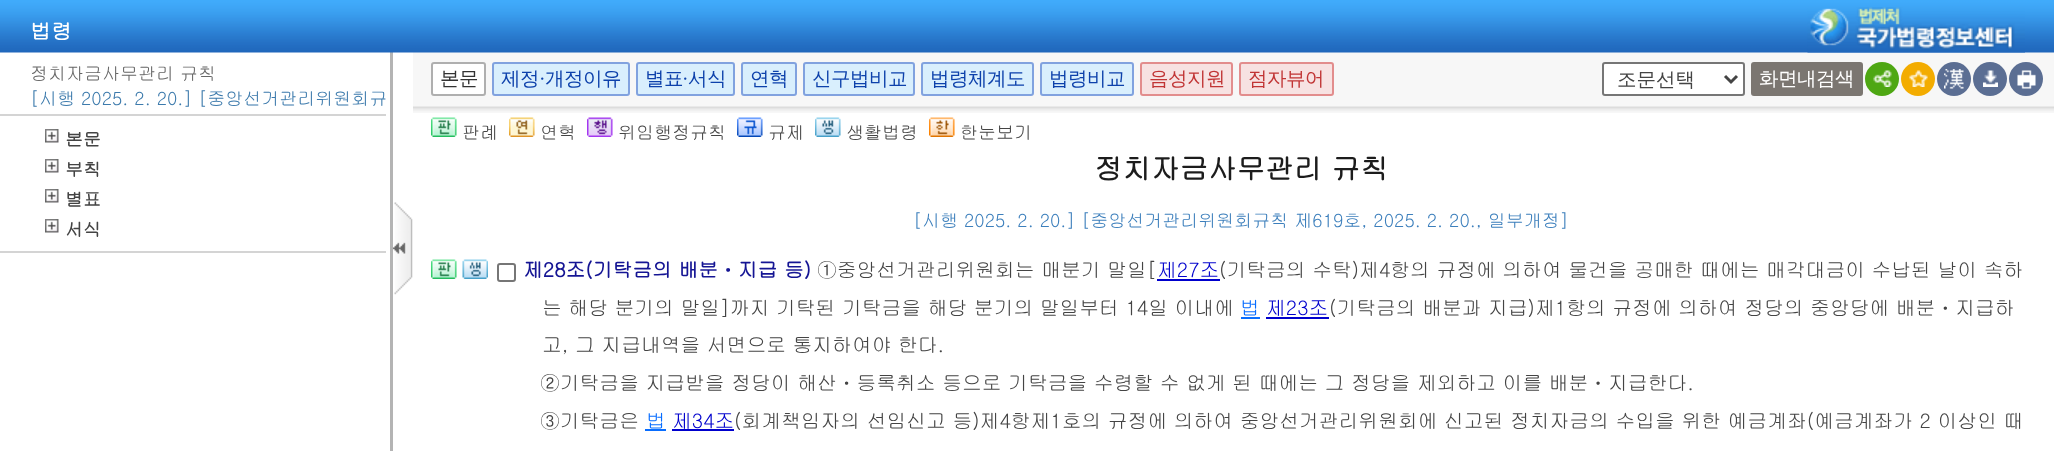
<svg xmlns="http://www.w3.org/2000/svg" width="2054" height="451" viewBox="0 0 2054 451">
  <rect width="100%" height="100%" fill="#fff"/>
  <path d="M413 52h1641v61H413z" fill="#f7f7f7"/>
  <path d="M390 51h3v400H390z" fill="#b4b4b4"/>
  <image x="0" y="0" width="2054" height="53" href="img/1.png"/>
  <image x="1807" y="7" width="218" height="46" href="img/2.png"/>
  <path d="M0 251h386v2H0z" fill="#d4d4d4"/>
  <path d="M0 114h386v2H0z" fill="#d4d4d4"/>
  <image x="45" y="129" width="14" height="14" href="img/3.png"/>
  <image x="45" y="159" width="14" height="14" href="img/3.png"/>
  <image x="45" y="189" width="14" height="14" href="img/3.png"/>
  <image x="45" y="219" width="14" height="14" href="img/3.png"/>
  <image x="413" y="106" width="1641" height="6" href="img/4.png"/>
  <rect x="432" y="63" width="53" height="32" rx="2" fill="#fff" stroke="#afafaf" stroke-width="2"/>
  <rect x="493" y="63" width="136" height="32" rx="2" fill="#d9effd" stroke="#81a2df" stroke-width="2"/>
  <rect x="637" y="63" width="97" height="32" rx="2" fill="#d9effd" stroke="#81a2df" stroke-width="2"/>
  <rect x="742" y="63" width="54" height="32" rx="2" fill="#d9effd" stroke="#81a2df" stroke-width="2"/>
  <rect x="804" y="63" width="110" height="32" rx="2" fill="#d9effd" stroke="#81a2df" stroke-width="2"/>
  <rect x="922" y="63" width="111" height="32" rx="2" fill="#d9effd" stroke="#81a2df" stroke-width="2"/>
  <rect x="1041" y="63" width="92" height="32" rx="2" fill="#d9effd" stroke="#81a2df" stroke-width="2"/>
  <rect x="1141" y="63" width="91" height="32" rx="2" fill="#f7e2e2" stroke="#e28d8d" stroke-width="2"/>
  <rect x="1240" y="63" width="93" height="32" rx="2" fill="#f7e2e2" stroke="#e28d8d" stroke-width="2"/>
  <rect x="1603" y="63" width="141" height="32" rx="2" fill="#fff" stroke="#767676" stroke-width="2"/>
  <path d="M1725 76L1731 82L1737 76" fill="none" stroke="#444" stroke-width="3"/>
  <rect x="1752" y="63" width="110" height="32" rx="2" fill="#7b7671" stroke="#7b7671" stroke-width="2"/>
  <circle cx="1882" cy="79" r="17" fill="#4ea713"/>
  <image x="1873" y="70" width="19" height="17" href="img/5.png"/>
  <circle cx="1918" cy="79" r="17" fill="#f3ac00"/>
  <image x="1909" y="70" width="19" height="17" href="img/6.png"/>
  <circle cx="1954" cy="79" r="17" fill="#5b6e93"/>
  <image x="1944" y="69" width="20" height="20" href="img/7.png"/>
  <circle cx="1990" cy="79" r="17" fill="#5b6e93"/>
  <image x="1983" y="70" width="15" height="17" href="img/8.png"/>
  <circle cx="2026" cy="79" r="17" fill="#5b6e93"/>
  <image x="2017" y="70" width="19" height="19" href="img/9.png"/>
  <image x="431" y="117" width="26" height="20" href="img/10.png"/>
  <image x="509" y="117" width="26" height="20" href="img/11.png"/>
  <image x="587" y="117" width="26" height="20" href="img/12.png"/>
  <image x="737" y="117" width="26" height="20" href="img/13.png"/>
  <image x="815" y="117" width="26" height="20" href="img/14.png"/>
  <image x="929" y="117" width="26" height="20" href="img/15.png"/>
  <image x="431" y="259" width="26" height="20" href="img/10.png"/>
  <image x="462" y="259" width="26" height="20" href="img/16.png"/>
  <rect x="498" y="264" width="17" height="17" rx="2" fill="none" stroke="#767676" stroke-width="2"/>
  <path d="M1157 279h63v2H1157z" fill="#0000cd"/>
  <path d="M1241 317h19v2H1241z" fill="#086dff"/>
  <path d="M1266 317h63v2H1266z" fill="#0000cd"/>
  <path d="M645 429h21v2H645z" fill="#086dff"/>
  <path d="M672 429h62v2H672z" fill="#0000cd"/>
  <image x="393" y="202" width="20" height="93" href="img/17.png"/>
  <text x="30" y="39" font-family="Gulim" font-size="21" font-weight="bold" fill="#fff">법령</text>
  <text x="30" y="80" font-family="Gulim" font-size="18" fill="#666">정치자금사무관리 규칙</text>
  <text x="30" y="105" font-family="Gulim" font-size="18" fill="#3c7aac">[시행 2025. 2. 20.] [중앙선거관리위원회규</text>
  <g font-family="Gulim" font-size="18" font-weight="bold" fill="#444">
    <text x="65" y="146">본문</text>
    <text x="65" y="176">부칙</text>
    <text x="65" y="206">별표</text>
    <text x="65" y="236">서식</text>
  </g>
  <text x="440" y="85" font-family="WenQuanYi Zen Hei" font-size="19.5" font-weight="500" letter-spacing="-0.5" fill="#333">본문</text>
  <text x="501" y="85" font-family="WenQuanYi Zen Hei" font-size="19.5" font-weight="500" letter-spacing="-0.5" fill="#0d41ab">제정</text>
  <text x="539" y="85" font-family="Liberation Serif" font-size="19.5" letter-spacing="-0.5" fill="#0d41ab">·</text>
  <g font-family="WenQuanYi Zen Hei" font-size="19.5" font-weight="500" letter-spacing="-0.5" fill="#0d41ab">
    <text x="545" y="85">개정이유</text>
    <text x="645" y="85">별표</text>
  </g>
  <text x="682" y="85" font-family="Liberation Serif" font-size="19.5" letter-spacing="-0.5" fill="#0d41ab">·</text>
  <g font-family="WenQuanYi Zen Hei" font-size="19.5" font-weight="500" letter-spacing="-0.5" fill="#0d41ab">
    <text x="688" y="85">서식</text>
    <text x="750" y="85">연혁</text>
    <text x="812" y="85">신구법비교</text>
    <text x="930" y="85">법령체계도</text>
    <text x="1049" y="85">법령비교</text>
  </g>
  <g font-family="WenQuanYi Zen Hei" font-size="19.5" font-weight="500" letter-spacing="-0.5" fill="#c13535">
    <text x="1149" y="85">음성지원</text>
    <text x="1248" y="85">점자뷰어</text>
  </g>
  <text x="1617" y="86" font-family="WenQuanYi Zen Hei" font-size="19.5" font-weight="500" fill="#444">조문선택</text>
  <text x="1759" y="85" font-family="WenQuanYi Zen Hei" font-size="19.5" font-weight="500" letter-spacing="-0.5" fill="#fff">화면내검색</text>
  <g font-family="Gulim" font-size="18" fill="#444">
    <text x="462" y="139">판례</text>
    <text x="540" y="139">연혁</text>
    <text x="618" y="139">위임행정규칙</text>
    <text x="768" y="139">규제</text>
    <text x="846" y="139">생활법령</text>
    <text x="960" y="139">한눈보기</text>
  </g>
  <text x="1094" y="179" font-family="Gulim" font-size="28.5" font-weight="bold" fill="#1c1c1c">정치자금사무관리 규칙</text>
  <text x="913" y="227" font-family="Gulim" font-size="18" fill="#3c7fbc">[시행 2025. 2. 20.] [중앙선거관리위원회규칙 제619호, 2025. 2. 20., 일부개정]</text>
  <text x="523" y="277" font-family="Gulim" font-size="19.8" font-weight="bold" fill="#151594">제28조(기탁금의 배분ㆍ지급 등)</text>
  <text x="817" y="277" font-family="Gulim" font-size="19.8" fill="#444">①중앙선거관리위원회는 매분기 말일[</text>
  <text x="1157" y="277" font-family="Gulim" font-size="19.8" fill="#0000cd">제27조</text>
  <g font-family="Gulim" font-size="19.8" fill="#444">
    <text x="1219" y="277">(기탁금의 수탁)제4항의 규정에 의하여 물건을 공매한 때에는 매각대금이 수납된 날이 속하</text>
    <text x="542" y="315">는 해당 분기의 말일]까지 기탁된 기탁금을 해당 분기의 말일부터 14일 이내에</text>
  </g>
  <text x="1240" y="315" font-family="Gulim" font-size="19.8" fill="#086dff">법</text>
  <text x="1266" y="315" font-family="Gulim" font-size="19.8" fill="#0000cd">제23조</text>
  <g font-family="Gulim" font-size="19.8" fill="#444">
    <text x="1329" y="315">(기탁금의 배분과 지급)제1항의 규정에 의하여 정당의 중앙당에 배분ㆍ지급하</text>
    <text x="542" y="352">고, 그 지급내역을 서면으로 통지하여야 한다.</text>
    <text x="540" y="390">②기탁금을 지급받을 정당이 해산ㆍ등록취소 등으로 기탁금을 수령할 수 없게 된 때에는 그 정당을 제외하고 이를 배분ㆍ지급한다.</text>
    <text x="540" y="428">③기탁금은</text>
  </g>
  <text x="646" y="428" font-family="Gulim" font-size="19.8" fill="#086dff">법</text>
  <text x="672" y="428" font-family="Gulim" font-size="19.8" fill="#0000cd">제34조</text>
  <text x="734" y="428" font-family="Gulim" font-size="19.8" fill="#444">(회계책임자의 선임신고 등)제4항제1호의 규정에 의하여 중앙선거관리위원회에 신고된 정치자금의 수입을 위한 예금계좌(예금계좌가 2 이상인 때</text>
</svg>
